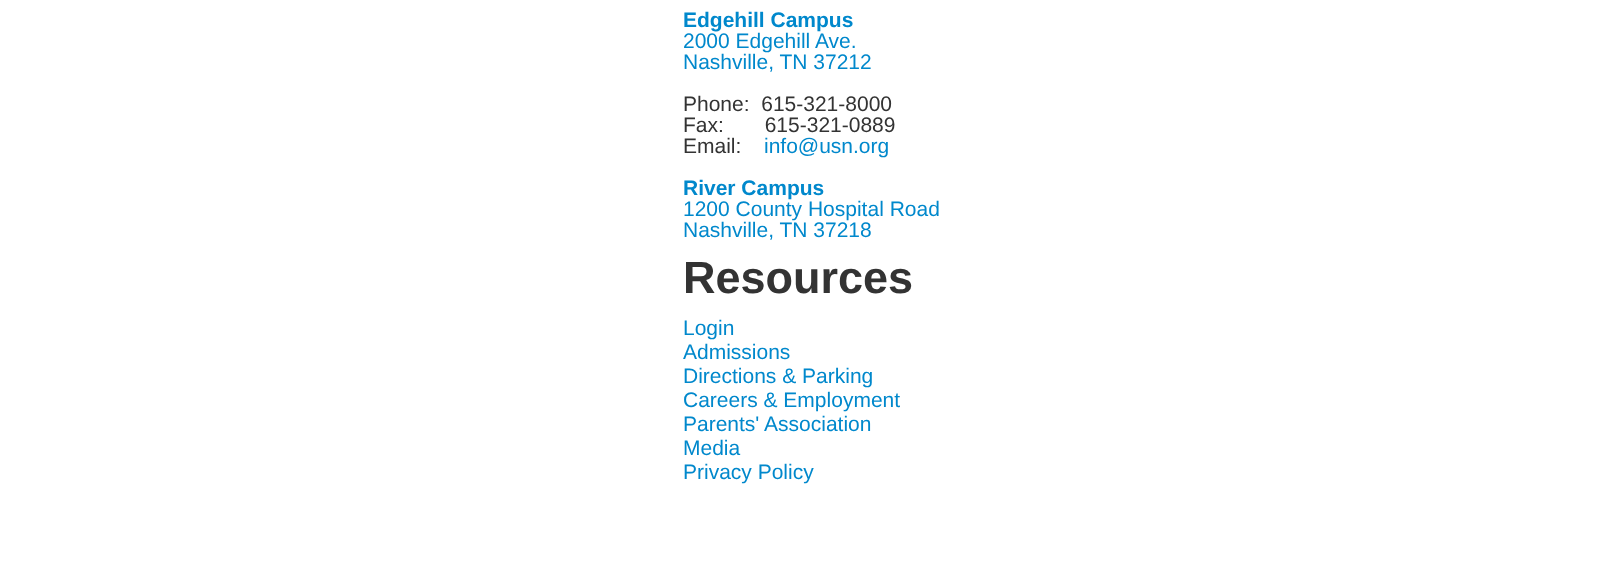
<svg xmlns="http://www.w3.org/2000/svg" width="1621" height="562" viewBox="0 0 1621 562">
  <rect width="100%" height="100%" fill="#fff"/>
  <text x="683" y="27" font-family="Liberation Sans" font-size="21" font-weight="bold" fill="#08c">Edgehill Campus</text>
  <g font-family="Liberation Sans" font-size="21" fill="#08c">
    <text x="683" y="48">2000 Edgehill Ave.</text>
    <text x="683" y="69">Nashville, TN 37212</text>
  </g>
  <g font-family="Liberation Sans" font-size="21" fill="#333">
    <text x="683" y="111" xml:space="preserve">Phone:  615-321-8000</text>
    <text x="683" y="132" xml:space="preserve">Fax:       615-321-0889</text>
    <text x="683" y="153">Email:</text>
  </g>
  <text x="764" y="153" font-family="Liberation Sans" font-size="21" fill="#08c">info@usn.org</text>
  <text x="683" y="195" font-family="Liberation Sans" font-size="21" font-weight="bold" fill="#08c">River Campus</text>
  <g font-family="Liberation Sans" font-size="21" fill="#08c">
    <text x="683" y="216">1200 County Hospital Road</text>
    <text x="683" y="237">Nashville, TN 37218</text>
  </g>
  <text x="683" y="293" font-family="Liberation Sans" font-size="45" font-weight="bold" fill="#333">Resources</text>
  <g font-family="Liberation Sans" font-size="21" fill="#08c">
    <text x="683" y="335">Login</text>
    <text x="683" y="359">Admissions</text>
    <text x="683" y="383">Directions &amp; Parking</text>
    <text x="683" y="407">Careers &amp; Employment</text>
    <text x="683" y="431">Parents' Association</text>
    <text x="683" y="455">Media</text>
    <text x="683" y="479">Privacy Policy</text>
  </g>
</svg>
